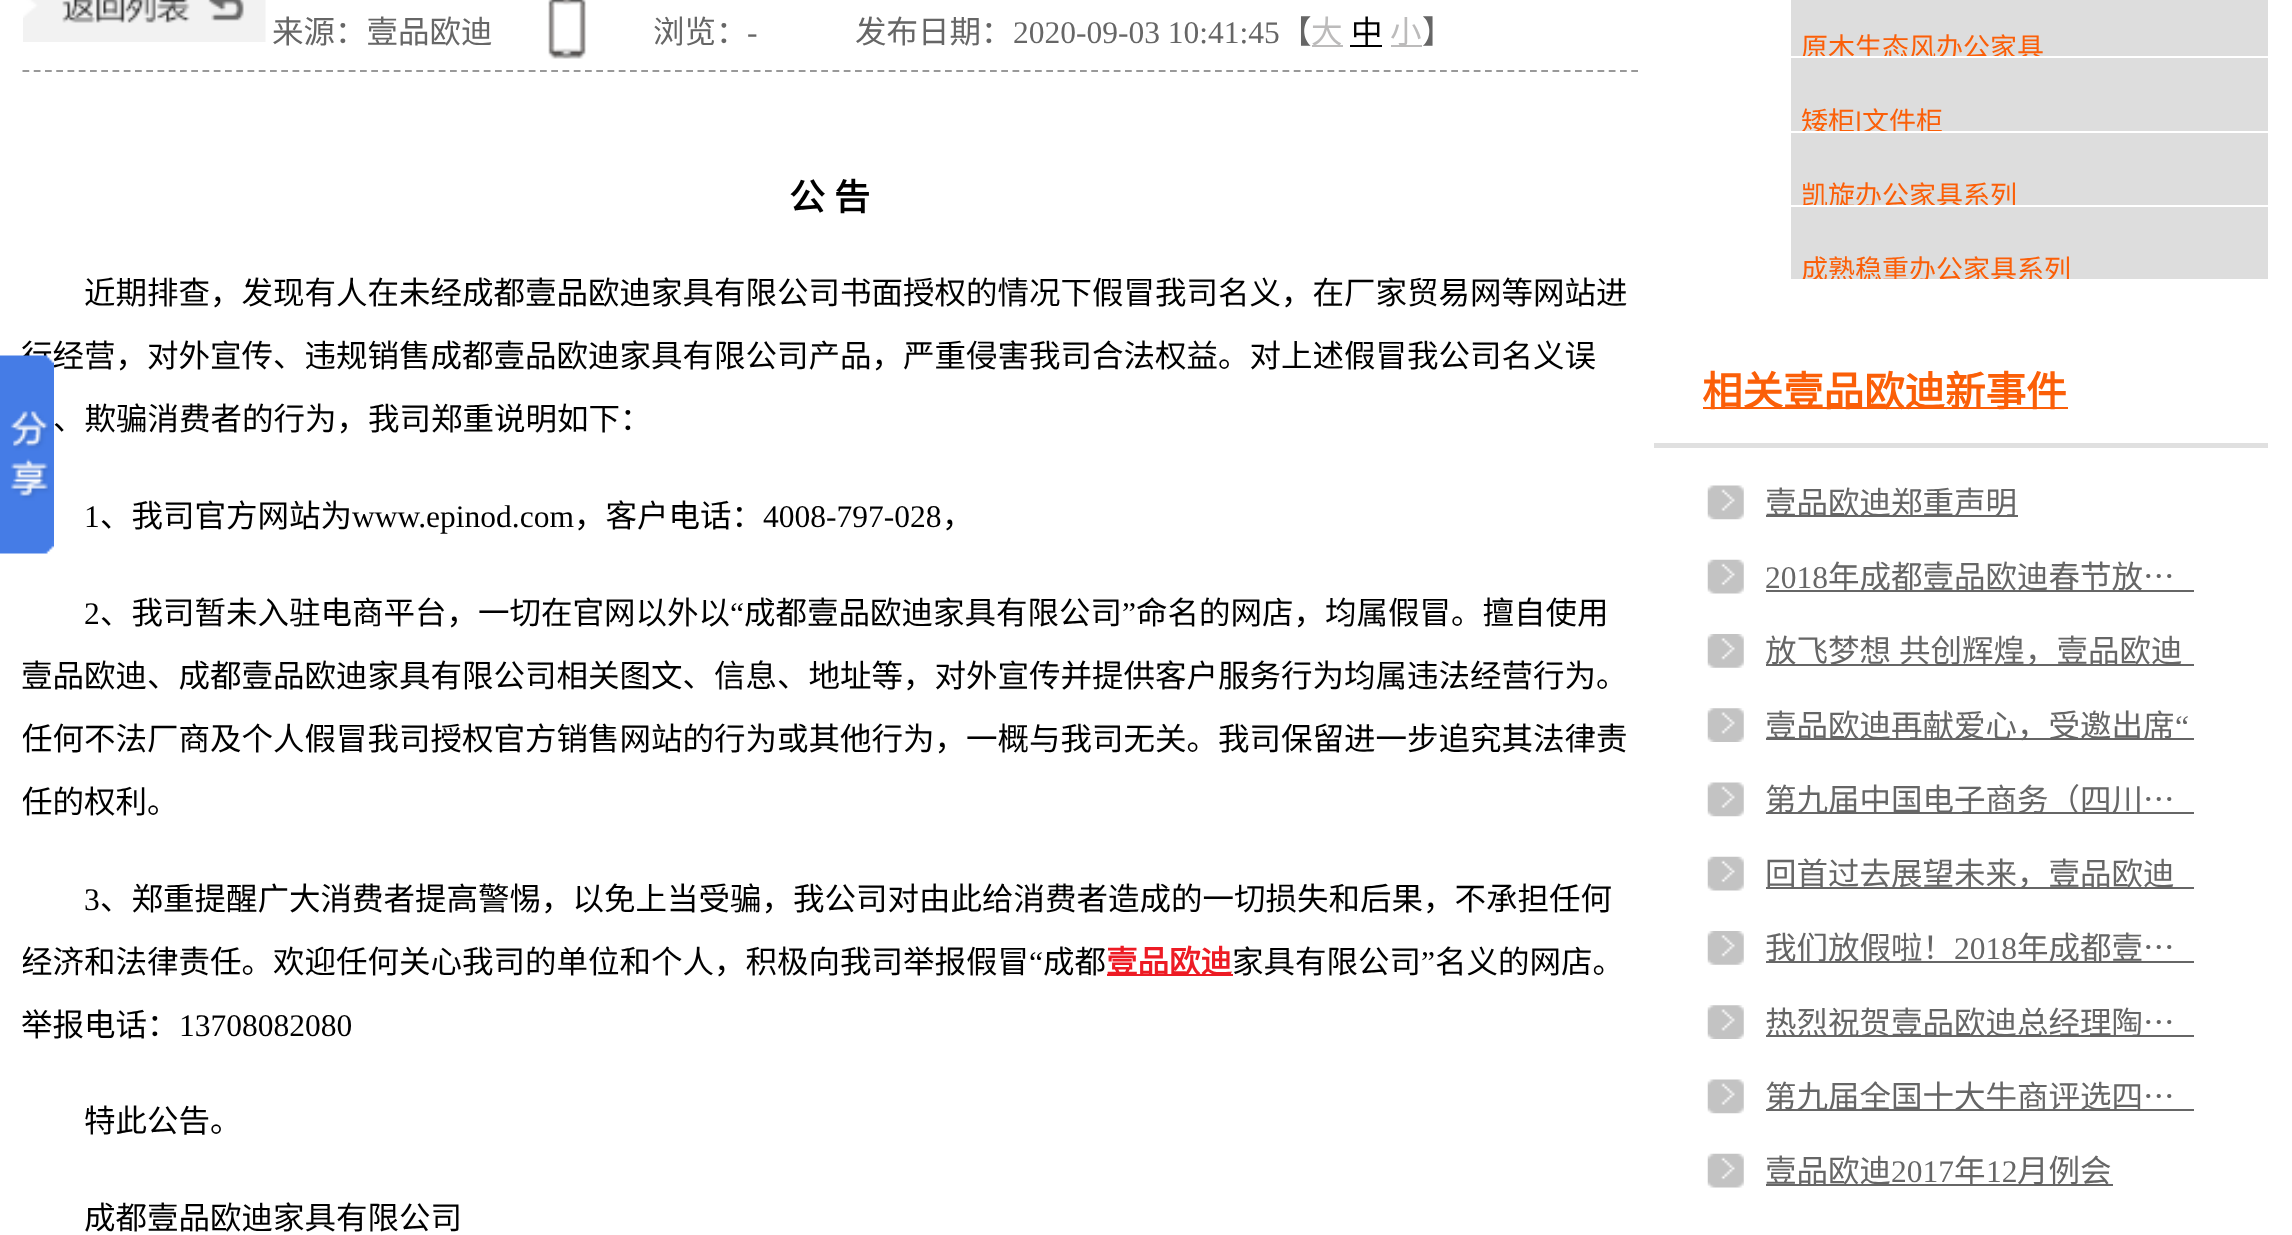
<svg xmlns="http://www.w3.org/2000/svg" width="2292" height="1235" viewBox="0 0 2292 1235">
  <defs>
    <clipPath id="clip1"><path d="M23 0h1620v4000H23z"/></clipPath>
    <clipPath id="clip2"><path d="M1791 11h477v45H1791z"/></clipPath>
    <clipPath id="clip3"><path d="M1791 86h477v45H1791z"/></clipPath>
    <clipPath id="clip4"><path d="M1791 160h477v45H1791z"/></clipPath>
    <clipPath id="clip5"><path d="M1791 234h477v45H1791z"/></clipPath>
  </defs>
  <rect width="100%" height="100%" fill="#fff"/>
  <path d="M22.5 71H1638" fill="none" stroke="#999" stroke-width="2.2" stroke-dasharray="6.75 4.5"/>
  <image x="23" y="0" width="243" height="42" href="img/1.png"/>
  <image x="548" y="0" width="38" height="59" href="img/2.png"/>
  <path d="M1312 45h31v2H1312z" fill="#bcbbbb"/>
  <path d="M1350 45h32v2H1350z" fill="#000"/>
  <path d="M1391 45h31v2H1391z" fill="#bcbbbb"/>
  <path d="M1107 974h126v2H1107z" fill="#ed1b24"/>
  <path d="M1791 0h477v131H1791z" fill="#ddd"/>
  <path d="M1791 56h477v2H1791z" fill="#fff"/>
  <path d="M1791 133h477v72H1791z" fill="#ddd"/>
  <path d="M1791 207h477v72H1791z" fill="#ddd"/>
  <path d="M1654 443h614v5H1654z" fill="#e0e0e0"/>
  <path d="M1703 407h365v2H1703z" fill="#fb5f08"/>
  <image x="1707" y="485" width="37" height="35" href="img/3.png"/>
  <path d="M1766 515h252v2H1766z" fill="#666"/>
  <image x="1707" y="559" width="37" height="35" href="img/4.png"/>
  <path d="M1766 590h428v2H1766z" fill="#666"/>
  <image x="1707" y="634" width="37" height="34" href="img/5.png"/>
  <path d="M1766 664h428v2H1766z" fill="#666"/>
  <image x="1707" y="708" width="37" height="34" href="img/6.png"/>
  <path d="M1766 738h428v2H1766z" fill="#666"/>
  <image x="1707" y="782" width="37" height="35" href="img/3.png"/>
  <path d="M1766 812h428v2H1766z" fill="#666"/>
  <image x="1707" y="856" width="37" height="35" href="img/4.png"/>
  <path d="M1766 887h428v2H1766z" fill="#666"/>
  <image x="1707" y="931" width="37" height="34" href="img/5.png"/>
  <path d="M1766 961h428v2H1766z" fill="#666"/>
  <image x="1707" y="1005" width="37" height="34" href="img/6.png"/>
  <path d="M1766 1035h428v2H1766z" fill="#666"/>
  <image x="1707" y="1079" width="37" height="35" href="img/3.png"/>
  <path d="M1766 1109h428v2H1766z" fill="#666"/>
  <image x="1707" y="1153" width="37" height="35" href="img/4.png"/>
  <path d="M1766 1184h347v2H1766z" fill="#666"/>
  <g font-family="Noto Sans CJK SC" font-size="31.5" fill="#666">
    <text x="272" y="43">来源：壹品欧迪</text>
    <text x="653" y="43">浏览：</text>
  </g>
  <text x="747" y="43" font-family="Liberation Serif" font-size="31.5" fill="#666">-</text>
  <text x="855" y="43" font-family="Noto Sans CJK SC" font-size="31.5" fill="#666">发布日期：</text>
  <text x="1013" y="43" font-family="Liberation Serif" font-size="31.5" fill="#666">2020-09-03 10:41:45</text>
  <text x="1280" y="43" font-family="Noto Sans CJK SC" font-size="31.5" fill="#666">【</text>
  <text x="1311" y="43" font-family="Noto Sans CJK SC" font-size="31.5" fill="#bcbbbb">大</text>
  <text x="1351" y="43" font-family="Noto Sans CJK SC" font-size="31.5" fill="#000">中</text>
  <text x="1390" y="43" font-family="Noto Sans CJK SC" font-size="31.5" fill="#bcbbbb">小</text>
  <text x="1422" y="43" font-family="Noto Sans CJK SC" font-size="31.5" fill="#666">】</text>
  <text x="789" y="210" word-spacing="1" font-family="Noto Sans CJK SC" font-size="36" font-weight="bold" fill="#000">公 告</text>
  <g font-family="Noto Sans CJK SC" font-size="31.5" fill="#000">
    <text x="84" y="304">近期排查，发现有人在未经成都壹品欧迪家具有限公司书面授权的情况下假冒我司名义，在厂家贸易网等网站进</text>
    <text x="21" y="367">行经营，对外宣传、违规销售成都壹品欧迪家具有限公司产品，严重侵害我司合法权益。对上述假冒我公司名义误</text>
    <text x="53" y="430">、欺骗消费者的行为，我司郑重说明如下：</text>
  </g>
  <text x="84" y="527" font-family="Liberation Serif" font-size="31.5" fill="#000">1</text>
  <text x="100" y="527" font-family="Noto Sans CJK SC" font-size="31.5" fill="#000">、我司官方网站为</text>
  <text x="352" y="527" font-family="Liberation Serif" font-size="31.5" fill="#000">www.epinod.com</text>
  <text x="574" y="527" font-family="Noto Sans CJK SC" font-size="31.5" fill="#000">，客户电话：</text>
  <text x="763" y="527" font-family="Liberation Serif" font-size="31.5" fill="#000">4008-797-028</text>
  <text x="942" y="527" font-family="Noto Sans CJK SC" font-size="31.5" fill="#000">，</text>
  <text x="84" y="624" font-family="Liberation Serif" font-size="31.5" fill="#000">2</text>
  <text x="100" y="624" font-family="Noto Sans CJK SC" font-size="31.5" fill="#000">、我司暂未入驻电商平台，一切在官网以外以</text>
  <text x="730" y="624" font-family="Liberation Serif" font-size="31.5" fill="#000">“</text>
  <text x="744" y="624" font-family="Noto Sans CJK SC" font-size="31.5" fill="#000">成都壹品欧迪家具有限公司</text>
  <text x="1122" y="624" font-family="Liberation Serif" font-size="31.5" fill="#000">”</text>
  <g font-family="Noto Sans CJK SC" font-size="31.5" fill="#000">
    <text x="1136" y="624">命名的网店，均属假冒。擅自使用</text>
    <text x="21" y="687">壹品欧迪、成都壹品欧迪家具有限公司相关图文、信息、地址等，对外宣传并提供客户服务行为均属违法经营行为。</text>
  </g>
  <g clip-path="url(#clip1)">
    <g font-family="Noto Sans CJK SC" font-size="31.5" fill="#000">
      <text x="21" y="750">任何不法厂商及个人假冒我司授权官方销售网站的行为或其他行为，一概与我司无关。我司保留进一步追究其法律责</text>
      <text x="21" y="813">任的权利。</text>
    </g>
  </g>
  <text x="84" y="910" font-family="Liberation Serif" font-size="31.5" fill="#000">3</text>
  <text x="100" y="910" font-family="Noto Sans CJK SC" font-size="31.5" fill="#000">、郑重提醒广大消费者提高警惕，以免上当受骗，我公司对由此给消费者造成的一切损失和后果，不承担任何</text>
  <g clip-path="url(#clip1)">
    <text x="21" y="973" font-family="Noto Sans CJK SC" font-size="31.5" fill="#000">经济和法律责任。欢迎任何关心我司的单位和个人，积极向我司举报假冒</text>
  </g>
  <text x="1029" y="973" font-family="Liberation Serif" font-size="31.5" fill="#000">“</text>
  <text x="1043" y="973" font-family="Noto Sans CJK SC" font-size="31.5" fill="#000">成都</text>
  <text x="1106" y="973" font-family="Noto Sans CJK SC" font-size="31.5" font-weight="bold" fill="#ed1b24">壹品欧迪</text>
  <text x="1232" y="973" font-family="Noto Sans CJK SC" font-size="31.5" fill="#000">家具有限公司</text>
  <text x="1421" y="973" font-family="Liberation Serif" font-size="31.5" fill="#000">”</text>
  <g font-family="Noto Sans CJK SC" font-size="31.5" fill="#000">
    <text x="1435" y="973">名义的网店。</text>
    <text x="21" y="1036">举报电话：</text>
  </g>
  <text x="179" y="1036" font-family="Liberation Serif" font-size="31.5" fill="#000">13708082080</text>
  <g font-family="Noto Sans CJK SC" font-size="31.5" fill="#000">
    <text x="84" y="1132">特此公告。</text>
    <text x="84" y="1229">成都壹品欧迪家具有限公司</text>
  </g>
  <g clip-path="url(#clip2)">
    <text x="1801" y="57" font-family="Noto Sans CJK SC" font-size="27" fill="#fb5f08">原木生态风办公家具</text>
  </g>
  <g clip-path="url(#clip3)">
    <text x="1801" y="131" font-family="Noto Sans CJK SC" font-size="27" fill="#fb5f08">矮柜</text>
    <text x="1855" y="131" font-family="Liberation Sans" font-size="27" fill="#fb5f08">|</text>
    <text x="1862" y="131" font-family="Noto Sans CJK SC" font-size="27" fill="#fb5f08">文件柜</text>
  </g>
  <g clip-path="url(#clip4)">
    <text x="1801" y="205" font-family="Noto Sans CJK SC" font-size="27" fill="#fb5f08">凯旋办公家具系列</text>
  </g>
  <g clip-path="url(#clip5)">
    <text x="1801" y="279" font-family="Noto Sans CJK SC" font-size="27" fill="#fb5f08">成熟稳重办公家具系列</text>
  </g>
  <text x="1702" y="406" font-family="Noto Sans CJK SC" font-size="40.5" font-weight="bold" fill="#fb5f08">相关壹品欧迪新事件</text>
  <text x="1765" y="514" font-family="Noto Sans CJK SC" font-size="31.5" fill="#666">壹品欧迪郑重声明</text>
  <text x="1765" y="588" font-family="Liberation Serif" font-size="31.5" fill="#666">2018</text>
  <g font-family="Noto Sans CJK SC" font-size="31.5" fill="#666">
    <text x="1828" y="588">年成都壹品欧迪春节放…</text>
    <text x="1765" y="662" word-spacing="1">放飞梦想 共创辉煌，壹品欧迪</text>
    <text x="1765" y="737">壹品欧迪再献爱心，受邀出席</text>
  </g>
  <text x="2175" y="737" font-family="Liberation Serif" font-size="31.5" fill="#666">“</text>
  <g font-family="Noto Sans CJK SC" font-size="31.5" fill="#666">
    <text x="1765" y="811">第九届中国电子商务（四川…</text>
    <text x="1765" y="885">回首过去展望未来，壹品欧迪</text>
    <text x="1765" y="959">我们放假啦！</text>
  </g>
  <text x="1954" y="959" font-family="Liberation Serif" font-size="31.5" fill="#666">2018</text>
  <g font-family="Noto Sans CJK SC" font-size="31.5" fill="#666">
    <text x="2017" y="959">年成都壹…</text>
    <text x="1765" y="1034">热烈祝贺壹品欧迪总经理陶…</text>
    <text x="1765" y="1108">第九届全国十大牛商评选四…</text>
    <text x="1765" y="1182">壹品欧迪</text>
  </g>
  <text x="1891" y="1182" font-family="Liberation Serif" font-size="31.5" fill="#666">2017</text>
  <text x="1954" y="1182" font-family="Noto Sans CJK SC" font-size="31.5" fill="#666">年</text>
  <text x="1986" y="1182" font-family="Liberation Serif" font-size="31.5" fill="#666">12</text>
  <text x="2017" y="1182" font-family="Noto Sans CJK SC" font-size="31.5" fill="#666">月例会</text>
  <image x="0" y="355" width="54" height="199" href="img/7.png"/>
</svg>
